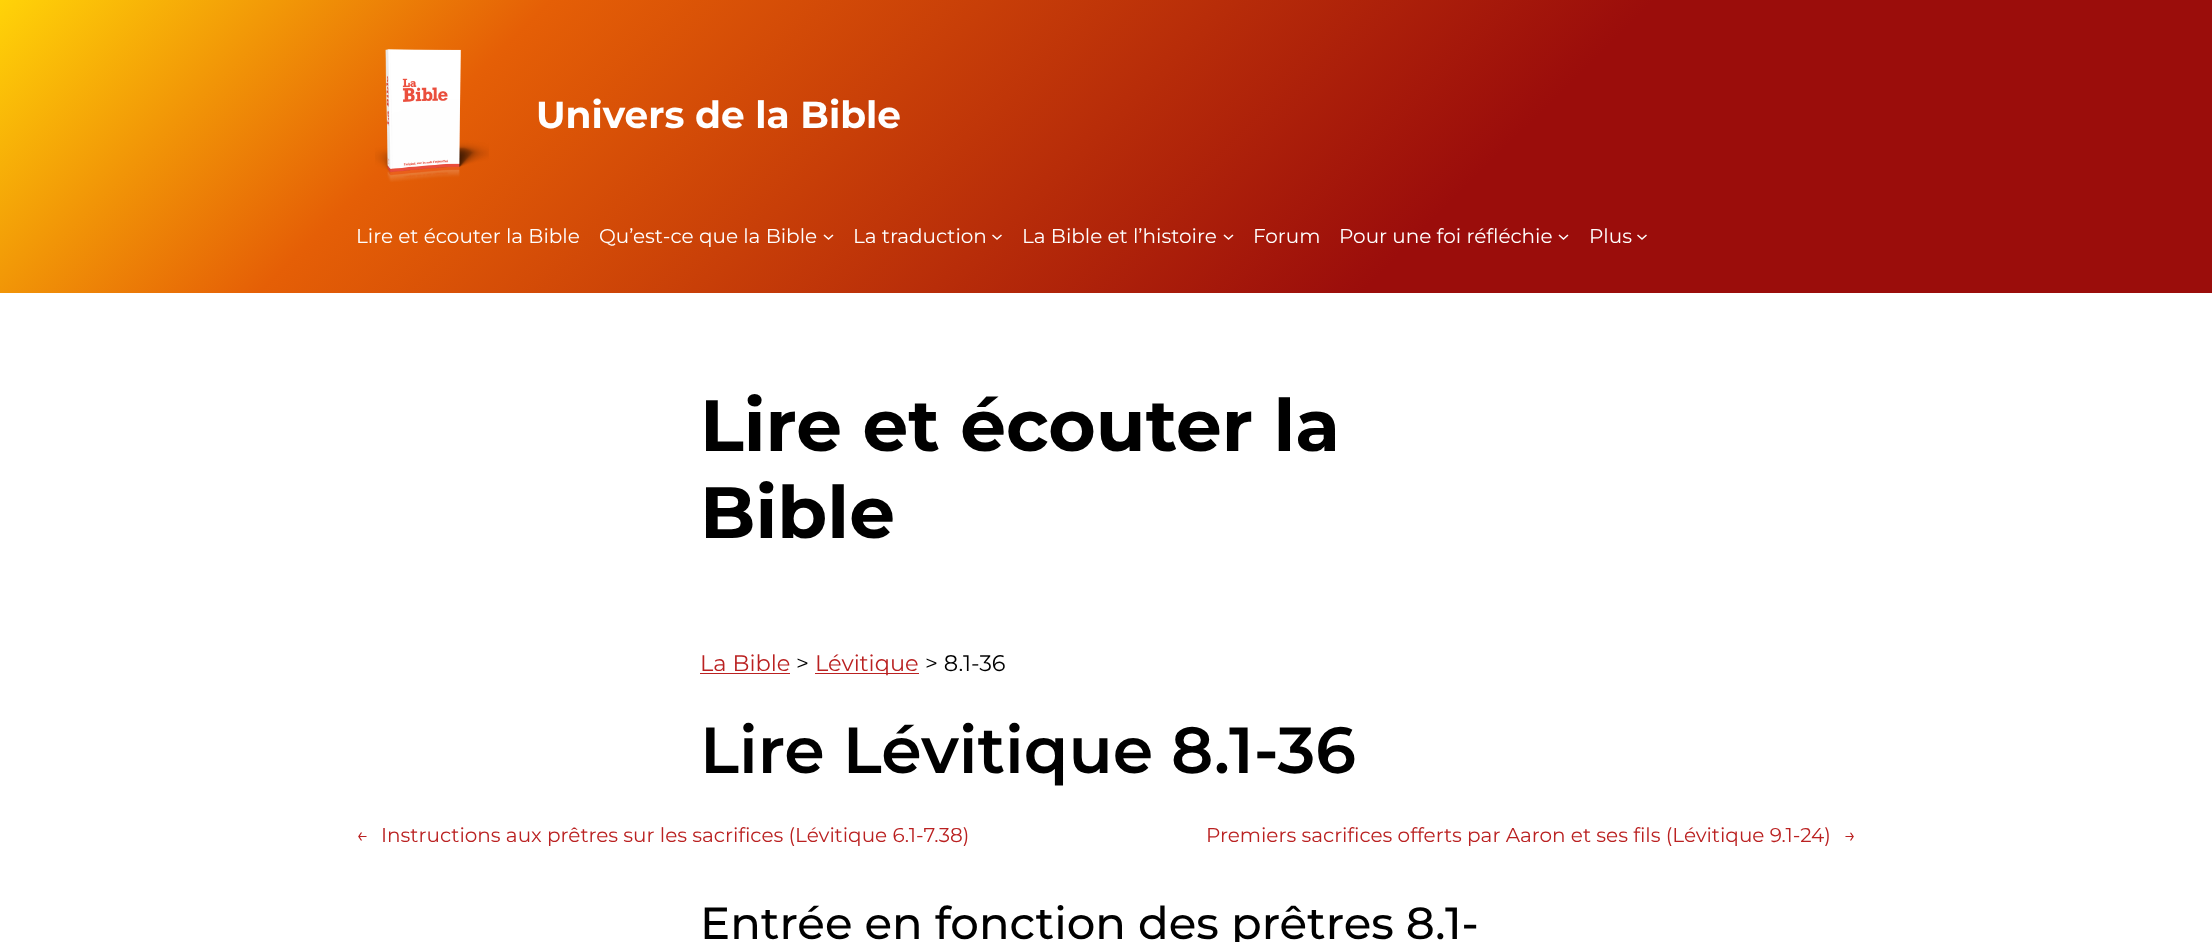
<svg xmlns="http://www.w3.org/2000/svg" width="2212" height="942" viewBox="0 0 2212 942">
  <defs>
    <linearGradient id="g1" gradientUnits="userSpaceOnUse" x1="480" y1="-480" x2="1733" y2="773"><stop offset="0" stop-color="#ffd308"/><stop offset="0.22" stop-color="#e55f06"/><stop offset="0.66" stop-color="#9b0d0b"/></linearGradient>
  </defs>
  <rect width="100%" height="100%" fill="#fff"/>
  <path d="M0 0h2212v293H0z" fill="url(#g1)"/>
  <image x="375" y="49" width="114" height="133" href="img/1.png"/>
  <path d="M824 235L828.5 239L833 235" fill="none" stroke="#fff" stroke-width="1.5"/>
  <path d="M992.5 235L997 239L1001.5 235" fill="none" stroke="#fff" stroke-width="1.5"/>
  <path d="M1224 235L1228.5 239L1233 235" fill="none" stroke="#fff" stroke-width="1.5"/>
  <path d="M1559 235L1563.5 239L1568 235" fill="none" stroke="#fff" stroke-width="1.5"/>
  <path d="M1637.5 235L1642 239L1646.5 235" fill="none" stroke="#fff" stroke-width="1.5"/>
  <path d="M700 673h90v1H700z" fill="#ba2121"/>
  <path d="M815 673h104v1H815z" fill="#ba2121"/>
  <text x="536" y="128" font-family="Montserrat" font-size="37.5" font-weight="bold" fill="#fff">Univers de la Bible</text>
  <g font-family="Montserrat" font-size="20" fill="#fff">
    <text x="356" y="243">Lire et écouter la Bible</text>
    <text x="599" y="243">Qu’est-ce que la Bible</text>
    <text x="853" y="243">La traduction</text>
    <text x="1022" y="243">La Bible et l’histoire</text>
    <text x="1253" y="243">Forum</text>
    <text x="1339" y="243">Pour une foi réfléchie</text>
    <text x="1589" y="243">Plus</text>
  </g>
  <g font-family="Montserrat" font-size="72.5" font-weight="bold" fill="#000">
    <text x="700" y="451">Lire et écouter la</text>
    <text x="700" y="538">Bible</text>
  </g>
  <text x="700" y="671" font-family="Montserrat" font-size="22.5" fill="#ba2121">La Bible</text>
  <text x="796" y="671" font-family="Montserrat" font-size="22.5" fill="#000">&gt;</text>
  <text x="815" y="671" font-family="Montserrat" font-size="22.5" fill="#ba2121">Lévitique</text>
  <text x="925" y="671" font-family="Montserrat" font-size="22.5" fill="#000">&gt; 8.1-36</text>
  <text x="700" y="773" font-family="Montserrat" font-size="65" font-weight="600" fill="#000">Lire Lévitique 8.1-36</text>
  <g font-family="Montserrat" font-size="20" fill="#ba2121">
    <text x="356" y="842">←</text>
    <text x="381" y="842">Instructions aux prêtres sur les sacrifices (Lévitique 6.1-7.38)</text>
    <text x="1206" y="842">Premiers sacrifices offerts par Aaron et ses fils (Lévitique 9.1-24)</text>
    <text x="1844" y="842">→</text>
  </g>
  <text x="700" y="939" font-family="Montserrat" font-size="45" font-weight="500" fill="#000">Entrée en fonction des prêtres 8.1-</text>
</svg>
